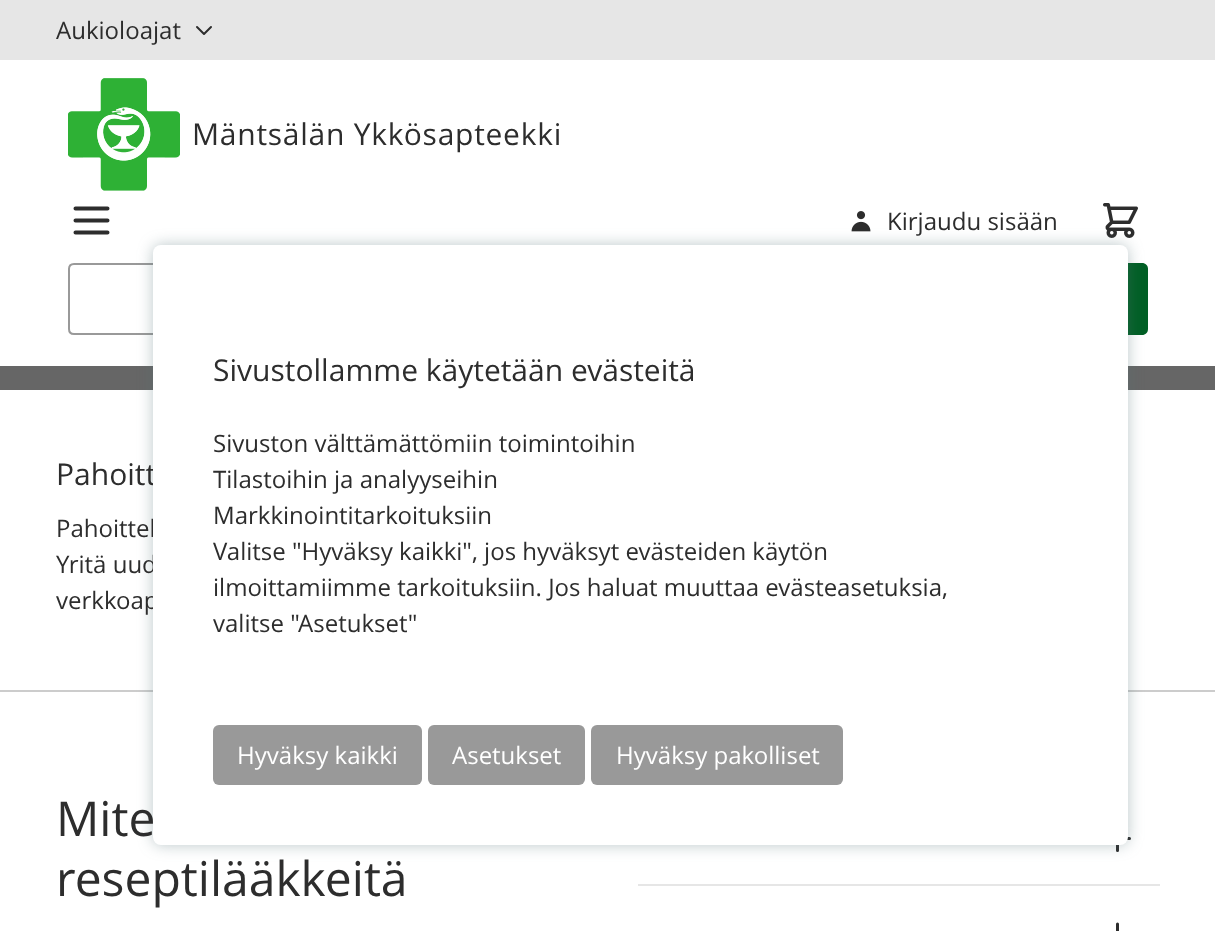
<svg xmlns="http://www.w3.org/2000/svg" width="1215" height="931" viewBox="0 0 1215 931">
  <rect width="100%" height="100%" fill="#fff"/>
  <path d="M0 0h1215v60H0z" fill="#e6e6e6"/>
  <path d="M211 27L204 34L197 27" fill="none" stroke="#2d2d2d" stroke-width="2" stroke-linecap="round" stroke-linejoin="round"/>
  <image x="68" y="78" width="112" height="113" href="img/1.png"/>
  <path d="M75.5 208.5H107.5M75.5 220.5H107.5M75.5 232.5H107.5" fill="none" stroke="#2d2d2d" stroke-width="4" stroke-linecap="round" stroke-linejoin="round"/>
  <image x="851" y="211" width="20" height="21" href="img/2.png"/>
  <image x="1103" y="203" width="35" height="35" href="img/3.png"/>
  <path d="M74 264H1063V334H74C71 334 69 332 69 329V269C69 266 71 264 74 264Z" fill="none" stroke="#999" stroke-width="2"/>
  <path d="M1064 263H1142C1145.5 263 1148 265.5 1148 269V329C1148 332.5 1145.5 335 1142 335H1064Z" fill="#005f25"/>
  <path d="M0 366h1215v24H0z" fill="#666"/>
  <path d="M0 690h1215v2H0z" fill="#ccc"/>
  <path d="M1117.5 826.5V850.5M1129.5 838.5H1105.5" fill="none" stroke="#2d2d2d" stroke-width="3" stroke-linecap="round" stroke-linejoin="round"/>
  <rect x="153" y="245" width="975" height="600" rx="8" fill="#54747866" filter="blur(7.5px)"/>
  <path d="M638 884h522v2H638z" fill="#e6e6e6"/>
  <path d="M1117.5 924V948M1129.5 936H1105.5" fill="none" stroke="#2d2d2d" stroke-width="3" stroke-linecap="round" stroke-linejoin="round"/>
  <text x="56" y="39" font-family="Open Sans" font-size="24" fill="#2d2d2d">Aukioloajat</text>
  <text x="192" y="145" font-family="Open Sans" font-size="30" letter-spacing="0.75" fill="#2d2d2d">Mäntsälän Ykkösapteekki</text>
  <text x="887" y="230" font-family="Open Sans" font-size="24" fill="#2d2d2d">Kirjaudu sisään</text>
  <text x="56" y="485" font-family="Open Sans" font-size="30" fill="#2d2d2d">Pahoitt</text>
  <g font-family="Open Sans" font-size="24" fill="#2d2d2d">
    <text x="56" y="537">Pahoittel</text>
    <text x="56" y="573">Yritä uud</text>
    <text x="56" y="609">verkkoap</text>
  </g>
  <rect x="153" y="245" width="975" height="600" rx="8" fill="#fff"/>
  <text x="213" y="381" font-family="Open Sans" font-size="30" fill="#2d2d2d">Sivustollamme käytetään evästeitä</text>
  <g font-family="Open Sans" font-size="24" fill="#2d2d2d">
    <text x="213" y="452">Sivuston välttämättömiin toimintoihin</text>
    <text x="213" y="488">Tilastoihin ja analyyseihin</text>
    <text x="213" y="524">Markkinointitarkoituksiin</text>
    <text x="213" y="560">Valitse "Hyväksy kaikki", jos hyväksyt evästeiden käytön</text>
    <text x="213" y="596">ilmoittamiimme tarkoituksiin. Jos haluat muuttaa evästeasetuksia,</text>
    <text x="213" y="632">valitse "Asetukset"</text>
  </g>
  <rect x="213" y="725" width="209" height="60" rx="6" fill="#999"/>
  <text x="237" y="764" font-family="Open Sans" font-size="24" fill="#fff">Hyväksy kaikki</text>
  <rect x="428" y="725" width="157" height="60" rx="6" fill="#999"/>
  <text x="452" y="764" font-family="Open Sans" font-size="24" fill="#fff">Asetukset</text>
  <rect x="591" y="725" width="252" height="60" rx="6" fill="#999"/>
  <text x="616" y="764" font-family="Open Sans" font-size="24" fill="#fff">Hyväksy pakolliset</text>
  <g font-family="Open Sans" font-size="48" fill="#2d2d2d">
    <text x="56" y="836">Mite</text>
    <text x="56" y="896">reseptilääkkeitä</text>
  </g>
</svg>
